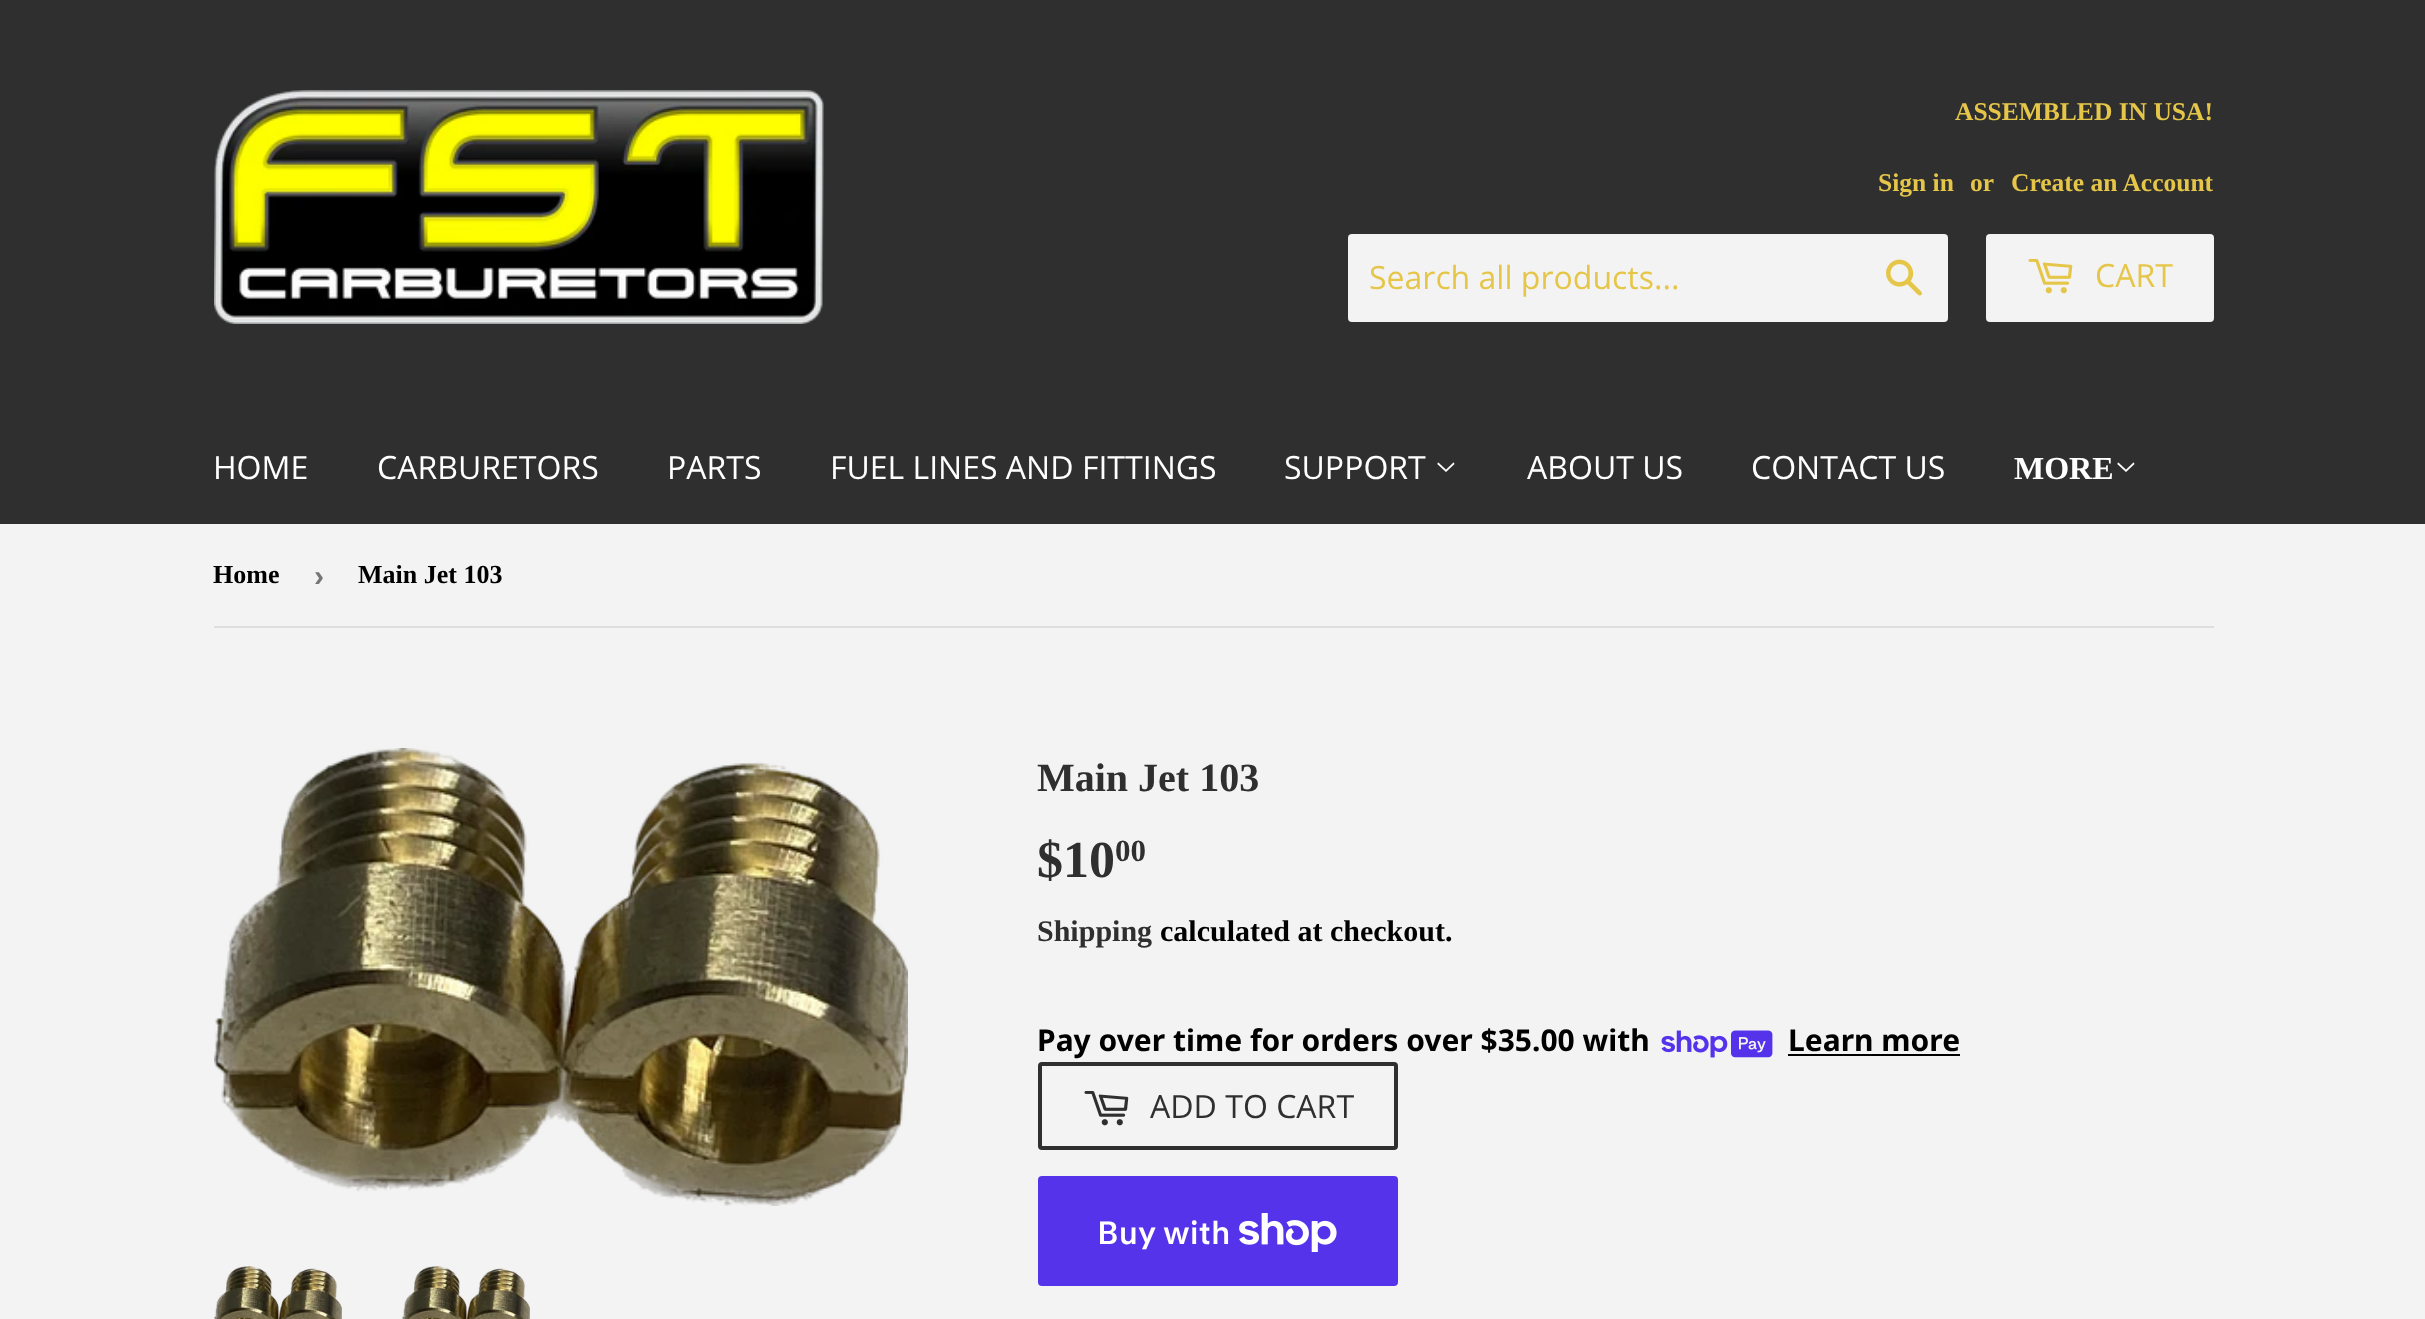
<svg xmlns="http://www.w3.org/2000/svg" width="2425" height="1319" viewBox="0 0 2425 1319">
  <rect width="100%" height="100%" fill="#f3f3f3"/>
  <path d="M0 0h2425v524H0z" fill="#2f2f2f"/>
  <image x="214" y="90" width="610" height="234" href="img/1.png"/>
  <rect x="1348" y="234" width="600" height="88" rx="4" fill="#f3f3f3"/>
  <image x="1886" y="259" width="36" height="37" href="img/2.png"/>
  <rect x="1986" y="234" width="228" height="88" rx="4" fill="#f3f3f3"/>
  <image x="2028" y="259" width="45" height="35" href="img/3.png"/>
  <image x="1437" y="462" width="18" height="10" href="img/4.png"/>
  <image x="2117" y="462" width="18" height="10" href="img/4.png"/>
  <path d="M214 626h2000v2H214z" fill="#dedede"/>
  <image x="214" y="748" width="694" height="458" href="img/5.png"/>
  <image x="214" y="1266" width="128" height="53" href="img/6.png"/>
  <image x="402" y="1266" width="128" height="53" href="img/6.png"/>
  <image x="1661" y="1030" width="112" height="28" href="img/7.png"/>
  <path d="M1788 1054h172v2H1788z" fill="#000"/>
  <rect x="1040" y="1064" width="356" height="84" rx="2" fill="none" stroke="#2f2f2f" stroke-width="4"/>
  <image x="1084" y="1091" width="45" height="35" href="img/8.png"/>
  <rect x="1038" y="1176" width="360" height="110" rx="4" fill="#5433eb"/>
  <image x="1239" y="1213" width="98" height="39" href="img/9.png"/>
  <g font-family="Liberation Serif" font-size="25.5" font-weight="bold" fill="#e5c649">
    <text x="1955" y="120">ASSEMBLED IN USA!</text>
    <text x="1878" y="191">Sign in</text>
    <text x="1970" y="191">or</text>
    <text x="2011" y="191">Create an Account</text>
  </g>
  <g font-family="Open Sans" font-size="32" fill="#e5c649">
    <text x="1369" y="289">Search all products...</text>
    <text x="2095" y="287">CART</text>
  </g>
  <g font-family="Open Sans" font-size="32" fill="#fff">
    <text x="213" y="479">HOME</text>
    <text x="377" y="479">CARBURETORS</text>
    <text x="667" y="479">PARTS</text>
    <text x="830" y="479">FUEL LINES AND FITTINGS</text>
    <text x="1284" y="479">SUPPORT</text>
    <text x="1527" y="479">ABOUT US</text>
    <text x="1751" y="479">CONTACT US</text>
  </g>
  <text x="2014" y="479" font-family="Liberation Serif" font-size="32" font-weight="bold" fill="#fff">MORE</text>
  <text x="213" y="583" font-family="Liberation Serif" font-size="26" font-weight="bold" fill="#000">Home</text>
  <text x="314" y="586" font-family="Liberation Sans" font-size="30" font-weight="bold" fill="#767676">›</text>
  <text x="358" y="583" font-family="Liberation Serif" font-size="26" font-weight="bold" fill="#000">Main Jet 103</text>
  <text x="1037" y="791" font-family="Liberation Serif" font-size="40" font-weight="bold" fill="#2f2f2f">Main Jet 103</text>
  <text x="1037" y="877" font-family="Liberation Serif" font-size="52" font-weight="bold" fill="#2f2f2f">$10</text>
  <text x="1115" y="861" font-family="Liberation Serif" font-size="31" font-weight="bold" fill="#2f2f2f">00</text>
  <text x="1037" y="941" font-family="Liberation Serif" font-size="30" font-weight="bold" fill="#2f2f2f">Shipping</text>
  <text x="1160" y="941" font-family="Liberation Serif" font-size="30" font-weight="bold" fill="#000">calculated at checkout.</text>
  <g font-family="Noto Sans" font-size="30" font-weight="bold" fill="#000">
    <text x="1037" y="1051">Pay over time for orders over $35.00 with</text>
    <text x="1788" y="1051">Learn more</text>
  </g>
  <text x="1150" y="1118" font-family="Open Sans" font-size="32" fill="#2f2f2f">ADD TO CART</text>
  <text x="1097" y="1244" font-family="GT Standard" font-size="32" font-weight="600" fill="#fff">Buy with</text>
</svg>
